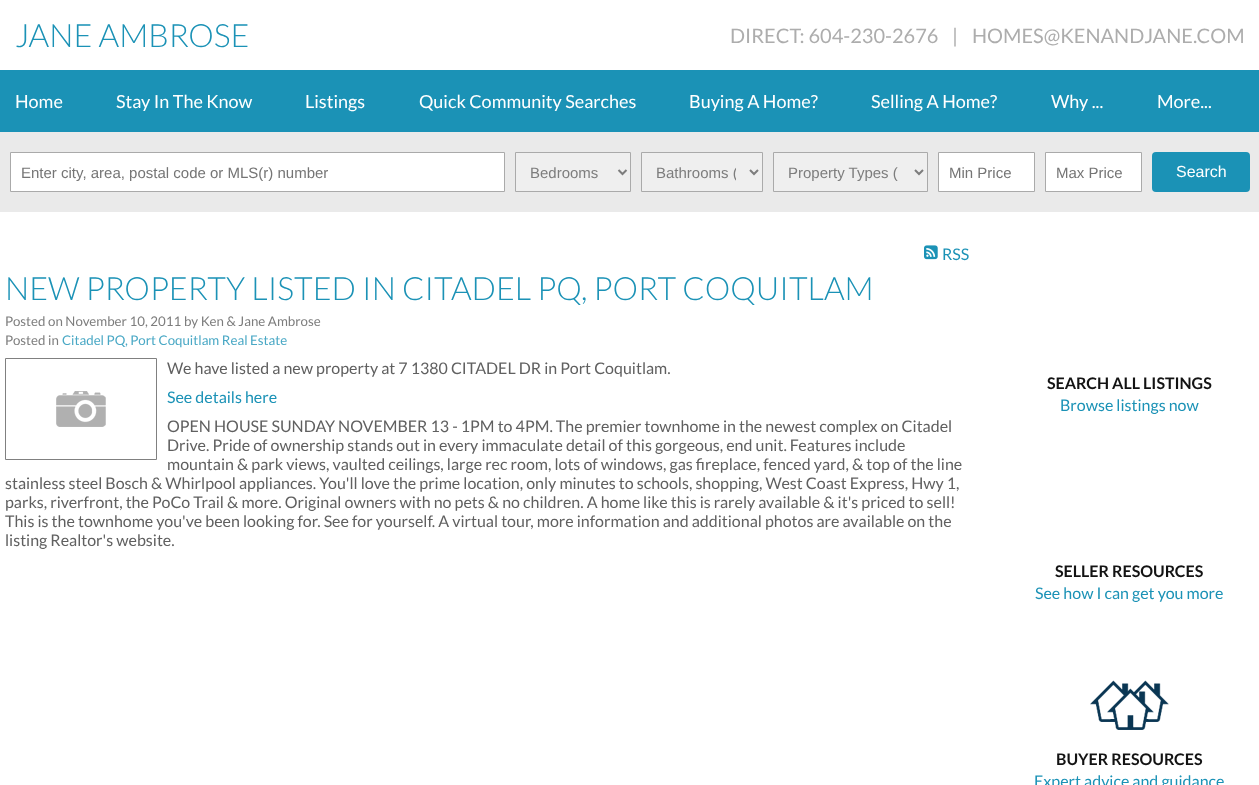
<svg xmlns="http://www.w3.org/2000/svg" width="1259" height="785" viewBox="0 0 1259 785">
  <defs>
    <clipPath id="clip1"><path d="M21 164h473v17H21z"/></clipPath>
    <clipPath id="clip2"><path d="M656 163h80v19H656z"/></clipPath>
  </defs>
  <rect width="100%" height="100%" fill="#fff"/>
  <path d="M0 70h1259v62H0z" fill="#1b92b6"/>
  <path d="M0 132h1259v80H0z" fill="#eaeaea"/>
  <path d="M10.5 152.5h494v39H10.5z" fill="#fff" stroke="#aaa"/>
  <path d="M515.5 152.5h115v39H515.5z" fill="#efefef" stroke="#aaa"/>
  <path d="M618.5 170L622.5 174L626.5 170" fill="none" stroke="#7d7d7d" stroke-width="2"/>
  <path d="M641.5 152.5h121v39H641.5z" fill="#efefef" stroke="#aaa"/>
  <path d="M750 170L754 174L758 170" fill="none" stroke="#7d7d7d" stroke-width="2"/>
  <path d="M773.5 152.5h154v39H773.5z" fill="#efefef" stroke="#aaa"/>
  <path d="M915 170L919 174L923 170" fill="none" stroke="#7d7d7d" stroke-width="2"/>
  <path d="M938.5 152.5h96v39H938.5z" fill="#fff" stroke="#aaa"/>
  <path d="M1045.5 152.5h96v39H1045.5z" fill="#fff" stroke="#aaa"/>
  <rect x="1152" y="152" width="98" height="40" rx="4" fill="#1b92b6"/>
  <image x="924" y="245" width="14" height="15" href="img/1.png"/>
  <path d="M5.5 358.5h151v101H5.5z" fill="none" stroke="#808080"/>
  <image x="56" y="391" width="50" height="36" href="img/2.png"/>
  <image x="1090" y="680" width="79" height="50" href="img/3.png"/>
  <text x="15" y="47" font-family="Lato" font-size="32" font-weight="300" fill="#1b92b6">JANE AMBROSE</text>
  <g font-family="Lato" font-size="20" fill="#adadad">
    <text x="730" y="43">DIRECT: 604-230-2676</text>
    <text x="952" y="43">|</text>
    <text x="972" y="43">HOMES@KENANDJANE.COM</text>
  </g>
  <g font-family="Lato" font-size="18" fill="#fff">
    <text x="15" y="108">Home</text>
    <text x="116" y="108">Stay In The Know</text>
    <text x="305" y="108">Listings</text>
    <text x="419" y="108">Quick Community Searches</text>
    <text x="689" y="108">Buying A Home?</text>
    <text x="871" y="108">Selling A Home?</text>
    <text x="1051" y="108">Why ...</text>
    <text x="1157" y="108">More...</text>
  </g>
  <g clip-path="url(#clip1)">
    <text x="21" y="178" font-family="Liberation Sans" font-size="15" fill="#757575">Enter city, area, postal code or MLS(r) number</text>
  </g>
  <text x="530" y="178" font-family="Liberation Sans" font-size="15" fill="#7d7d7d">Bedrooms</text>
  <g clip-path="url(#clip2)">
    <text x="656" y="178" font-family="Liberation Sans" font-size="15" fill="#7d7d7d">Bathrooms (</text>
  </g>
  <text x="788" y="178" font-family="Liberation Sans" font-size="15" fill="#7d7d7d">Property Types (</text>
  <g font-family="Liberation Sans" font-size="15" fill="#757575">
    <text x="949" y="178">Min Price</text>
    <text x="1056" y="178">Max Price</text>
  </g>
  <text x="1176" y="177" font-family="Liberation Sans" font-size="16" fill="#fff">Search</text>
  <text x="942" y="260" font-family="Lato" font-size="16" fill="#1b92b6">RSS</text>
  <text x="5" y="300" font-family="Lato" font-size="32" font-weight="300" fill="#1b92b6">NEW PROPERTY LISTED IN CITADEL PQ, PORT COQUITLAM</text>
  <g font-family="Lato" font-size="13.3" fill="#7d7d7d">
    <text x="5" y="326">Posted on November 10, 2011</text>
    <text x="184" y="326">by Ken &amp; Jane Ambrose</text>
    <text x="5" y="345">Posted in</text>
  </g>
  <text x="62" y="345" font-family="Lato" font-size="13.3" fill="#49a8c5">Citadel PQ, Port Coquitlam Real Estate</text>
  <text x="167" y="374" font-family="Lato" font-size="16" fill="#606060">We have listed a new property at 7 1380 CITADEL DR in Port Coquitlam.</text>
  <text x="167" y="403" font-family="Lato" font-size="16" fill="#1b92b6">See details here</text>
  <g font-family="Lato" font-size="16" fill="#606060">
    <text x="167" y="432">OPEN HOUSE SUNDAY NOVEMBER 13 - 1PM to 4PM. The premier townhome in the newest complex on Citadel</text>
    <text x="167" y="451">Drive. Pride of ownership stands out in every immaculate detail of this gorgeous, end unit. Features include</text>
    <text x="167" y="470">mountain &amp; park views, vaulted ceilings, large rec room, lots of windows, gas fireplace, fenced yard, &amp; top of the line</text>
    <text x="5" y="489">stainless steel Bosch &amp; Whirlpool appliances. You'll love the prime location, only minutes to schools, shopping, West Coast Express, Hwy 1,</text>
    <text x="5" y="508">parks, riverfront, the PoCo Trail &amp; more. Original owners with no pets &amp; no children. A home like this is rarely available &amp; it's priced to sell!</text>
    <text x="5" y="527">This is the townhome you've been looking for. See for yourself. A virtual tour, more information and additional photos are available on the</text>
    <text x="5" y="546">listing Realtor's website.</text>
  </g>
  <text x="1047" y="389" font-family="Lato" font-size="16" font-weight="bold" fill="#131313">SEARCH ALL LISTINGS</text>
  <text x="1060" y="411" font-family="Lato" font-size="16" fill="#1b92b6">Browse listings now</text>
  <text x="1055" y="577" font-family="Lato" font-size="16" font-weight="bold" fill="#131313">SELLER RESOURCES</text>
  <text x="1035" y="599" font-family="Lato" font-size="16" fill="#1b92b6">See how I can get you more</text>
  <text x="1056" y="765" font-family="Lato" font-size="16" font-weight="bold" fill="#131313">BUYER RESOURCES</text>
  <text x="1034" y="787" font-family="Lato" font-size="16" fill="#1b92b6">Expert advice and guidance</text>
</svg>
